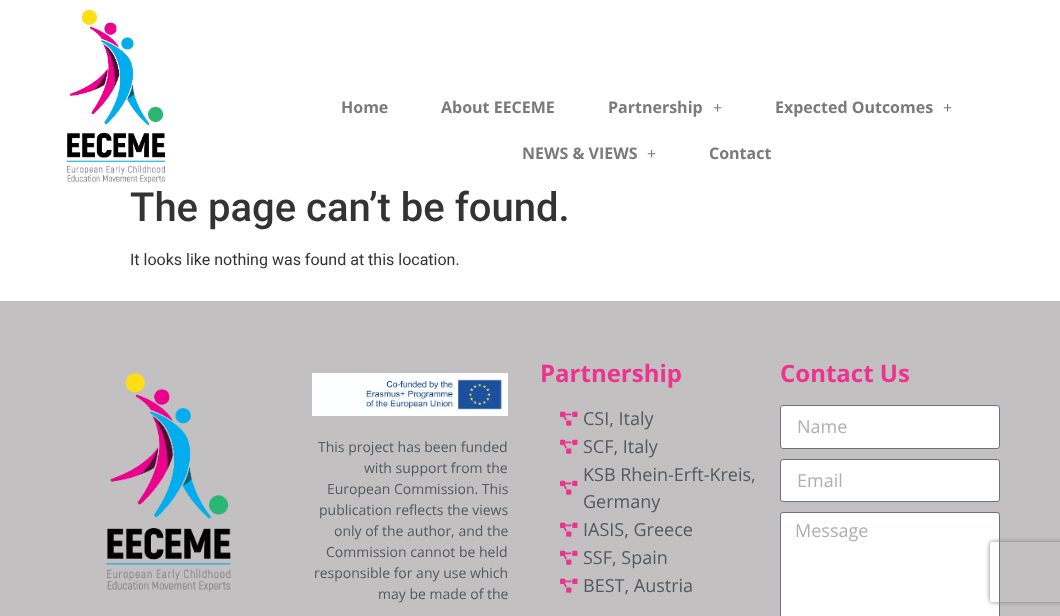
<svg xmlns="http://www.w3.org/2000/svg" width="1060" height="616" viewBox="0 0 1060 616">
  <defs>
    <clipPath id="clip1"><path d="M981 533H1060V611H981ZM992 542H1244C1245 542 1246 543 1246 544V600C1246 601 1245 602 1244 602H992C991 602 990 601 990 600V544C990 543 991 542 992 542Z" clip-rule="evenodd"/></clipPath>
  </defs>
  <rect width="100%" height="100%" fill="#fff"/>
  <image x="66" y="9" width="99" height="175" href="img/1.png"/>
  <path d="M0 301h1060v315H0z" fill="#c2c0c1"/>
  <image x="106" y="373" width="125" height="219" href="img/2.png"/>
  <image x="312" y="373" width="196" height="43" href="img/3.png"/>
  <image x="560" y="411" width="18" height="15" href="img/4.png"/>
  <image x="560" y="439" width="18" height="15" href="img/4.png"/>
  <image x="560" y="480" width="18" height="15" href="img/4.png"/>
  <image x="560" y="522" width="18" height="15" href="img/4.png"/>
  <image x="560" y="550" width="18" height="15" href="img/4.png"/>
  <image x="560" y="578" width="18" height="15" href="img/4.png"/>
  <rect x="780.5" y="405.5" width="219" height="43" rx="2.5" fill="#fff" stroke="#69727d"/>
  <rect x="780.5" y="459.5" width="219" height="42" rx="2.5" fill="#fff" stroke="#69727d"/>
  <rect x="780.5" y="512.5" width="219" height="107" rx="2.5" fill="#fff" stroke="#69727d"/>
  <g clip-path="url(#clip1)">
    <rect x="990" y="542" width="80" height="60" rx="2" fill="#808080" filter="blur(2.5px)"/>
  </g>
  <g font-family="Open Sans" font-size="16" font-weight="bold" fill="#7a7a7a">
    <text x="341" y="113">Home</text>
    <text x="441" y="113">About EECEME</text>
    <text x="608" y="113">Partnership</text>
  </g>
  <text x="713" y="113" font-family="Liberation Serif" font-size="16" font-weight="bold" fill="#7a7a7a">+</text>
  <text x="775" y="113" font-family="Open Sans" font-size="16" font-weight="bold" fill="#7a7a7a">Expected Outcomes</text>
  <text x="943" y="113" font-family="Liberation Serif" font-size="16" font-weight="bold" fill="#7a7a7a">+</text>
  <text x="522" y="159" font-family="Open Sans" font-size="16" font-weight="bold" fill="#7a7a7a">NEWS &amp; VIEWS</text>
  <text x="647" y="159" font-family="Liberation Serif" font-size="16" font-weight="bold" fill="#7a7a7a">+</text>
  <text x="709" y="159" font-family="Open Sans" font-size="16" font-weight="bold" fill="#7a7a7a">Contact</text>
  <text x="130" y="221" font-family="Roboto" font-size="40" font-weight="500" fill="#333">The page can’t be found.</text>
  <text x="130" y="265" font-family="Roboto" font-size="16" fill="#333">It looks like nothing was found at this location.</text>
  <g font-family="Open Sans" font-size="14" fill="#54595f">
    <text x="318" y="452">This project has been funded</text>
    <text x="364" y="473">with support from the</text>
    <text x="327" y="494">European Commission. This</text>
    <text x="319" y="515">publication reflects the views</text>
    <text x="334" y="536">only of the author, and the</text>
    <text x="326" y="557">Commission cannot be held</text>
    <text x="314" y="578">responsible for any use which</text>
    <text x="378" y="599">may be made of the</text>
  </g>
  <text x="540" y="382" font-family="Open Sans" font-size="24" font-weight="bold" fill="#ed328f">Partnership</text>
  <g font-family="Open Sans" font-size="18" fill="#54595f">
    <text x="583" y="425">CSI, Italy</text>
    <text x="583" y="453">SCF, Italy</text>
    <text x="583" y="481">KSB Rhein-Erft-Kreis,</text>
    <text x="583" y="508">Germany</text>
    <text x="583" y="536">IASIS, Greece</text>
    <text x="583" y="564">SSF, Spain</text>
    <text x="583" y="592">BEST, Austria</text>
  </g>
  <text x="780" y="382" font-family="Open Sans" font-size="24" font-weight="bold" fill="#ed328f">Contact Us</text>
  <g font-family="Open Sans" font-size="18" fill="#afafaf">
    <text x="797" y="433">Name</text>
    <text x="797" y="487">Email</text>
    <text x="795" y="537">Message</text>
  </g>
</svg>
